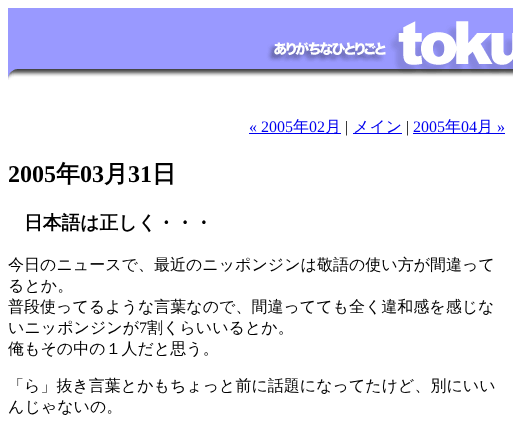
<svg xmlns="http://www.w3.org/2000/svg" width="513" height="423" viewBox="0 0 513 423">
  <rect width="100%" height="100%" fill="#fff"/>
  <image x="8" y="8" width="505" height="72" href="img/1.png"/>
  <path d="M249 133h92v1H249z" fill="#00e"/>
  <path d="M353 133h49v1H353z" fill="#00e"/>
  <path d="M413 133h92v1H413z" fill="#00e"/>
  <text x="249" y="132" font-family="Liberation Serif" font-size="16" fill="#00e">« 2005</text>
  <text x="293" y="132" font-family="WenQuanYi Zen Hei" font-size="16" font-weight="500" fill="#00e">年</text>
  <text x="309" y="132" font-family="Liberation Serif" font-size="16" fill="#00e">02</text>
  <text x="325" y="132" font-family="WenQuanYi Zen Hei" font-size="16" font-weight="500" fill="#00e">月</text>
  <text x="345" y="132" font-family="Liberation Serif" font-size="16" fill="#000">|</text>
  <text x="353" y="132" font-family="WenQuanYi Zen Hei" font-size="16" font-weight="500" fill="#00e">メイン</text>
  <text x="406" y="132" font-family="Liberation Serif" font-size="16" fill="#000">|</text>
  <text x="413" y="132" font-family="Liberation Serif" font-size="16" fill="#00e">2005</text>
  <text x="445" y="132" font-family="WenQuanYi Zen Hei" font-size="16" font-weight="500" fill="#00e">年</text>
  <text x="461" y="132" font-family="Liberation Serif" font-size="16" fill="#00e">04</text>
  <text x="477" y="132" font-family="WenQuanYi Zen Hei" font-size="16" font-weight="500" fill="#00e">月</text>
  <text x="497" y="132" font-family="Liberation Serif" font-size="16" fill="#00e">»</text>
  <text x="8" y="182" font-family="Liberation Serif" font-size="24" font-weight="bold" fill="#000">2005</text>
  <text x="56" y="182" font-family="WenQuanYi Zen Hei" font-size="24" font-weight="bold" fill="#000">年</text>
  <text x="80" y="182" font-family="Liberation Serif" font-size="24" font-weight="bold" fill="#000">03</text>
  <text x="104" y="182" font-family="WenQuanYi Zen Hei" font-size="24" font-weight="bold" fill="#000">月</text>
  <text x="128" y="182" font-family="Liberation Serif" font-size="24" font-weight="bold" fill="#000">31</text>
  <text x="152" y="182" font-family="WenQuanYi Zen Hei" font-size="24" font-weight="bold" fill="#000">日</text>
  <text x="24" y="229" font-family="WenQuanYi Zen Hei" font-size="18.75" font-weight="bold" fill="#000">日本語は正しく・・・</text>
  <g font-family="WenQuanYi Zen Hei" font-size="16" font-weight="500" fill="#000">
    <text x="8" y="270">今日のニュースで、最近のニッポンジンは敬語の使い方が間違って</text>
    <text x="8" y="291">るとか。</text>
    <text x="8" y="312">普段使ってるような言葉なので、間違ってても全く違和感を感じな</text>
    <text x="8" y="333">いニッポンジンが</text>
  </g>
  <text x="139" y="333" font-family="Liberation Serif" font-size="16" fill="#000">7</text>
  <g font-family="WenQuanYi Zen Hei" font-size="16" font-weight="500" fill="#000">
    <text x="147" y="333">割くらいいるとか。</text>
    <text x="8" y="354">俺もその中の１人だと思う。</text>
    <text x="8" y="391">「ら」抜き言葉とかもちょっと前に話題になってたけど、別にいい</text>
    <text x="8" y="412">んじゃないの。</text>
  </g>
</svg>
